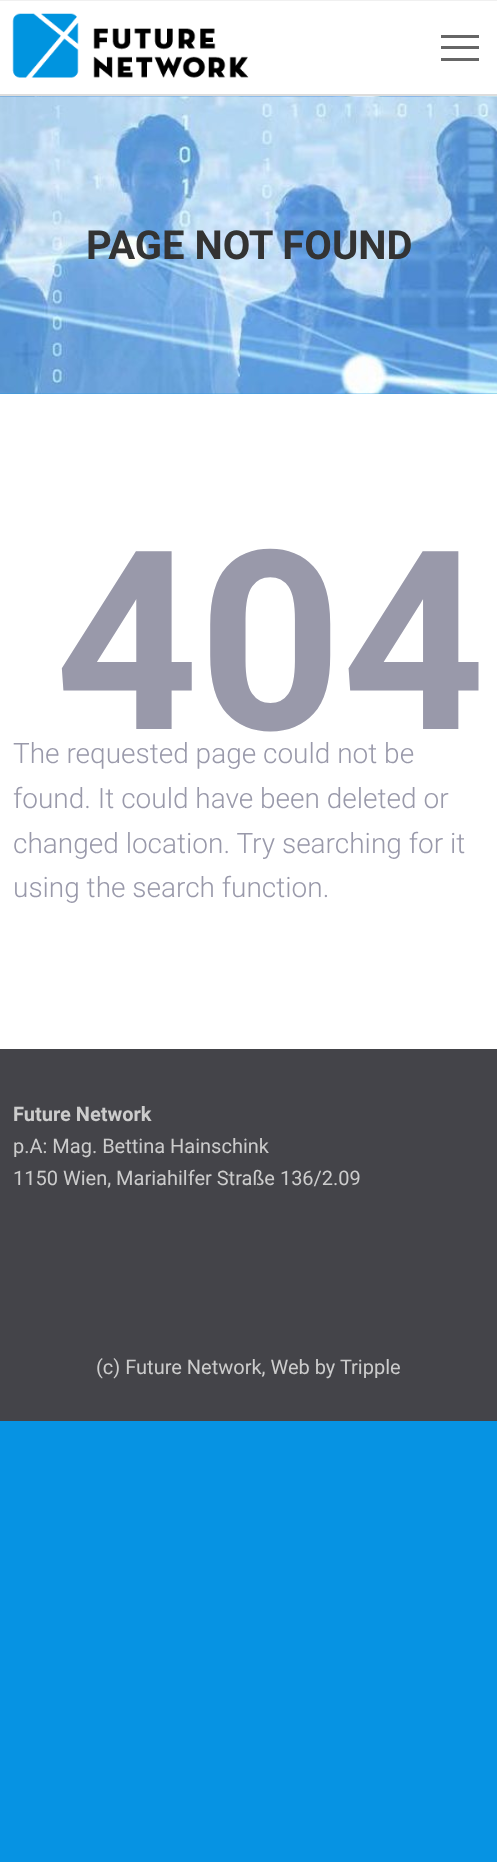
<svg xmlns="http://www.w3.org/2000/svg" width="497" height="1862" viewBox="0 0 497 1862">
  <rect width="100%" height="100%" fill="#0693e3"/>
  <path d="M0 0h497v1H0z" fill="#f0f0f0"/>
  <path d="M0 1h497v93H0z" fill="#fff"/>
  <path d="M0 94h497v2H0z" fill="#ddd"/>
  <image x="12" y="13" width="237" height="65" href="img/1.png"/>
  <path d="M441 35h38v3H441z" fill="#666"/>
  <path d="M441 58h38v3H441z" fill="#666"/>
  <path d="M441 46h38v3H441z" fill="#666"/>
  <image x="0" y="96" width="497" height="298" href="img/2.png"/>
  <path d="M0 394h497v655H0z" fill="#fff"/>
  <path d="M0 1049h497v372H0z" fill="#444449"/>
  <text x="86" y="259" font-family="Roboto" font-size="40" font-weight="bold" fill="#333">PAGE NOT FOUND</text>
  <text x="55" y="729" font-family="Roboto" font-size="250" font-weight="bold" fill="#99a">404</text>
  <g font-family="Roboto" font-size="28" font-weight="300" fill="#99a">
    <text x="13" y="763">The requested page could not be</text>
    <text x="13" y="808">found. It could have been deleted or</text>
    <text x="13" y="853">changed location. Try searching for it</text>
    <text x="13" y="897">using the search function.</text>
  </g>
  <text x="13" y="1121" font-family="Roboto" font-size="20" font-weight="bold" fill="#ccc">Future Network</text>
  <g font-family="Roboto" font-size="20" fill="#ccc">
    <text x="13" y="1153">p.A: Mag. Bettina Hainschink</text>
    <text x="13" y="1185">1150 Wien, Mariahilfer Straße 136/2.09</text>
    <text x="96" y="1374">(c) Future Network, Web by Tripple</text>
  </g>
</svg>
